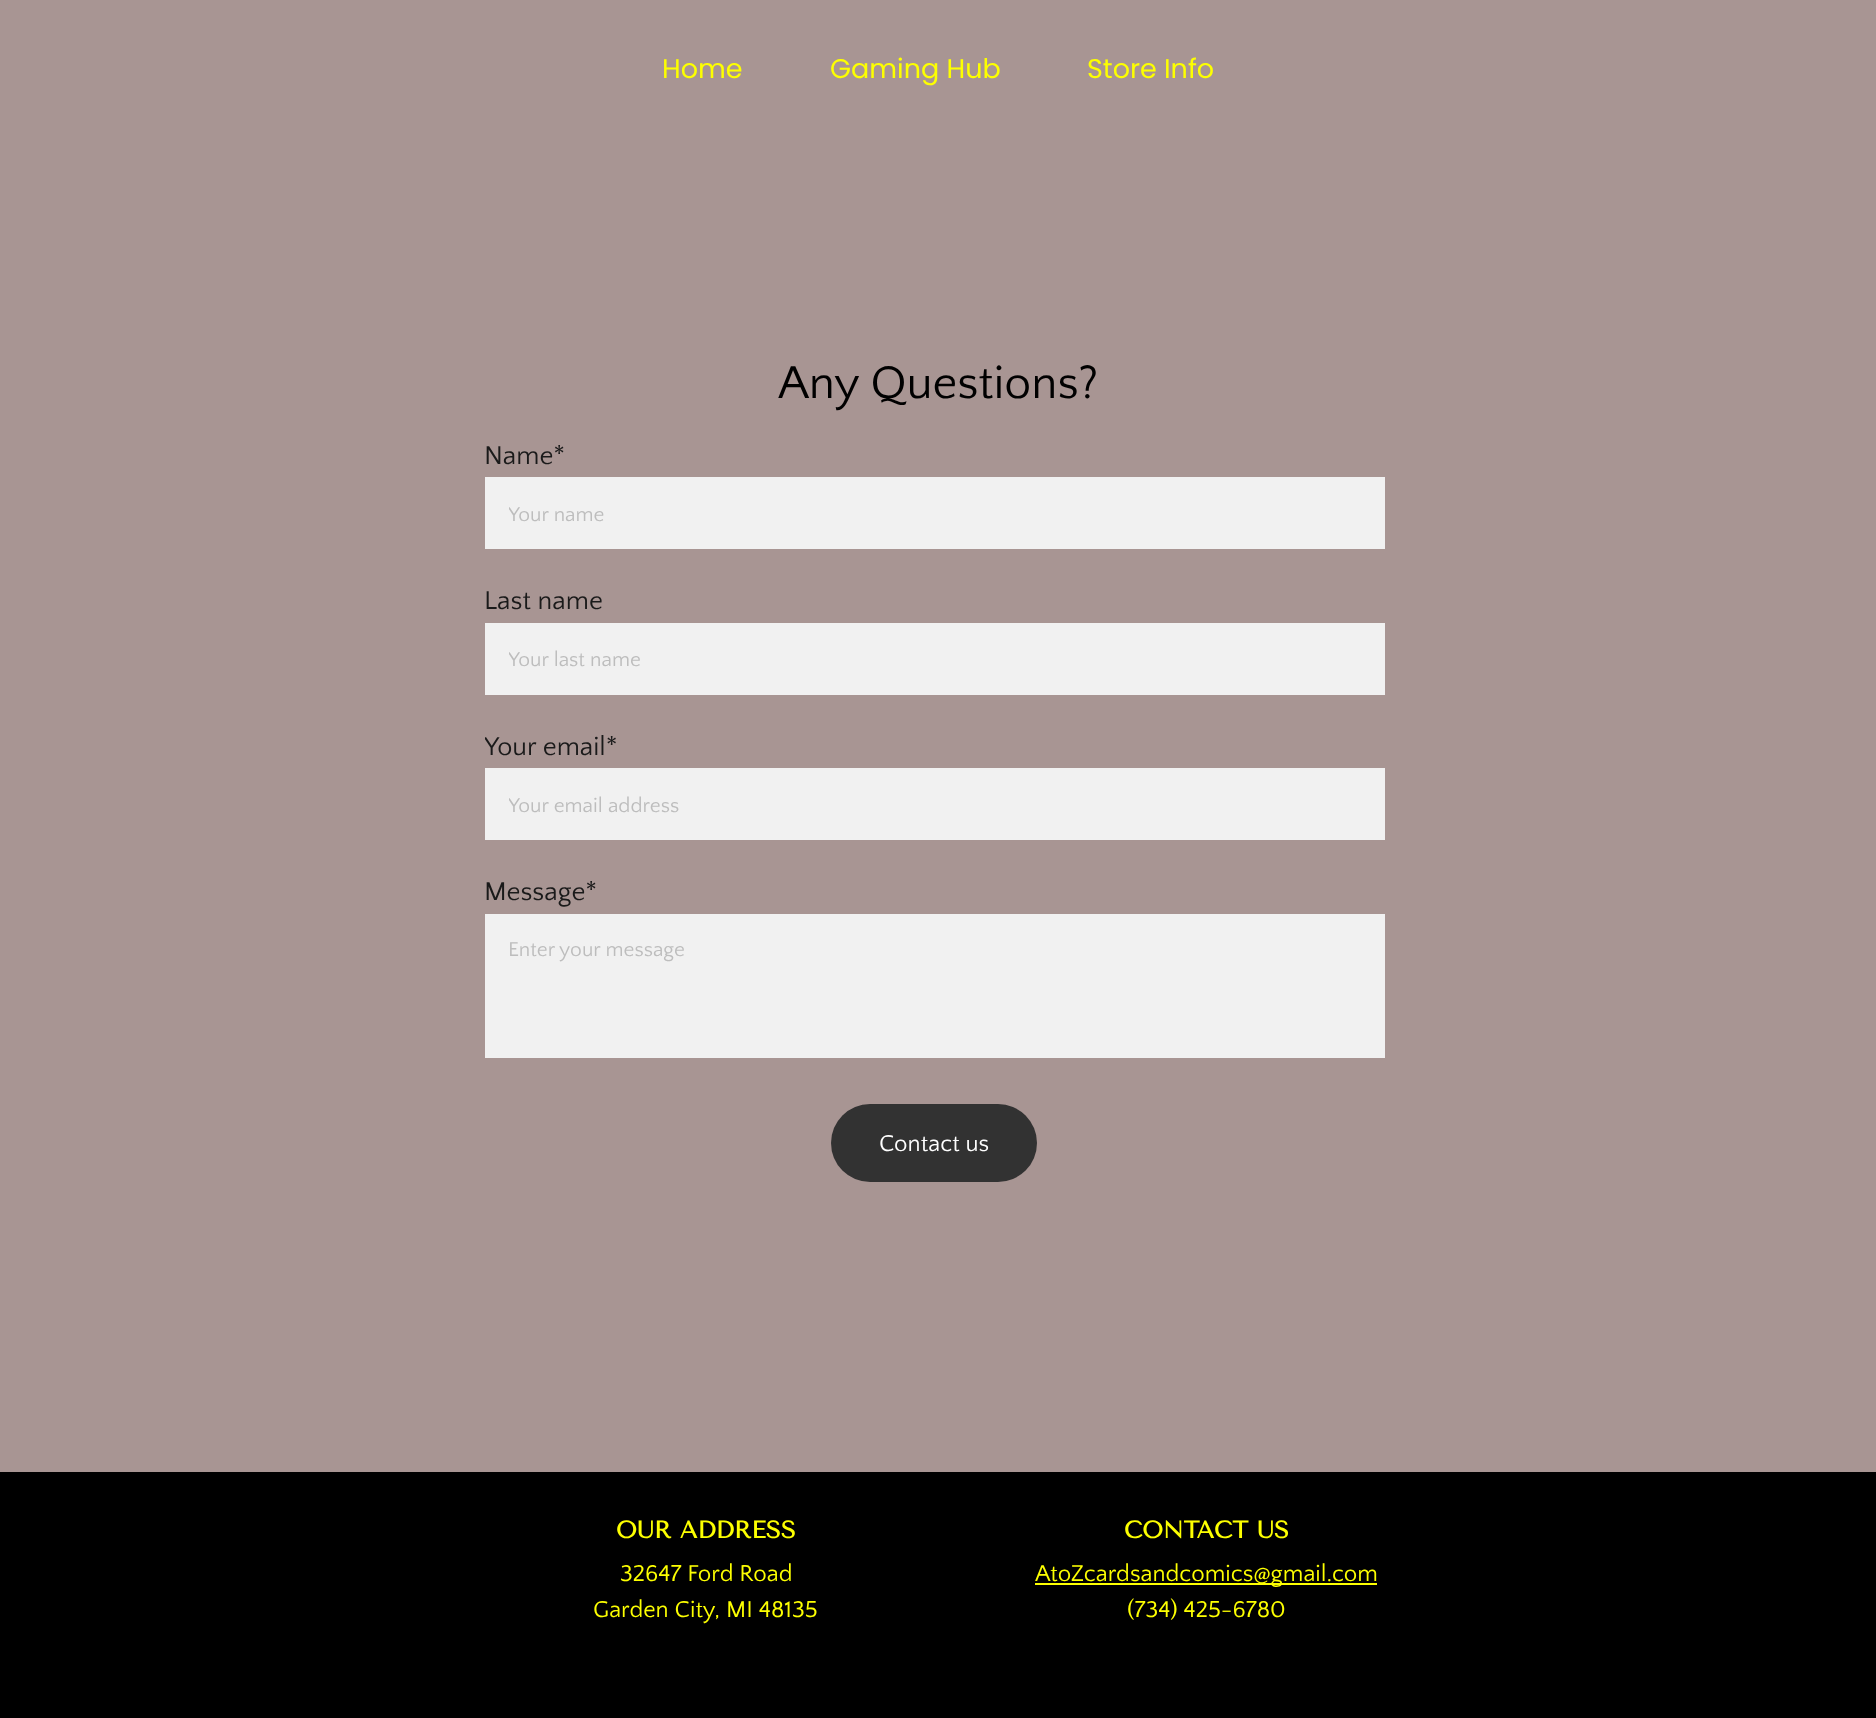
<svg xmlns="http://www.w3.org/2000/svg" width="1876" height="1718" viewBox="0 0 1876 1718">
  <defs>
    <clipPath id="clip1"><path d="M509 503h852v24H509z"/></clipPath>
    <clipPath id="clip2"><path d="M509 648h852v24H509z"/></clipPath>
    <clipPath id="clip3"><path d="M485 437h900v745H485z"/></clipPath>
    <clipPath id="clip4"><path d="M509 794h852v24H509z"/></clipPath>
  </defs>
  <rect width="100%" height="100%" fill="#a89593"/>
  <path d="M485 477h900v72H485z" fill="#f1f1f1"/>
  <path d="M485 623h900v72H485z" fill="#f1f1f1"/>
  <path d="M485 768h900v72H485z" fill="#f1f1f1"/>
  <path d="M485 914h900v144H485z" fill="#f1f1f1"/>
  <rect x="831" y="1104" width="206" height="78" rx="39" fill="#323232"/>
  <path d="M0 1472h1876v246H0z" fill="#000"/>
  <path d="M1035 1583h342v2H1035z" fill="#fdff00"/>
  <g font-family="Poppins" font-size="27" fill="#fdff00">
    <text x="662" y="78">Home</text>
    <text x="830" y="78">Gaming Hub</text>
    <text x="1087" y="78">Store Info</text>
  </g>
  <text x="778" y="398" font-family="Quattrocento Sans" font-size="48" fill="#000">Any Questions?</text>
  <text x="484" y="464" font-family="Quattrocento Sans" font-size="27" fill="#1a1a1a">Name*</text>
  <g clip-path="url(#clip1)">
    <text x="508" y="521" font-family="Quattrocento Sans" font-size="21" fill="#bdbdbd">Your name</text>
  </g>
  <text x="484" y="609" font-family="Quattrocento Sans" font-size="27" fill="#1a1a1a">Last name</text>
  <g clip-path="url(#clip2)">
    <text x="508" y="666" font-family="Quattrocento Sans" font-size="21" fill="#bdbdbd">Your last name</text>
  </g>
  <g clip-path="url(#clip3)">
    <text x="484" y="755" font-family="Quattrocento Sans" font-size="27" fill="#1a1a1a">Your email*</text>
  </g>
  <g clip-path="url(#clip4)">
    <text x="508" y="812" font-family="Quattrocento Sans" font-size="21" fill="#bdbdbd">Your email address</text>
  </g>
  <text x="484" y="900" font-family="Quattrocento Sans" font-size="27" fill="#1a1a1a">Message*</text>
  <text x="508" y="956" font-family="Quattrocento Sans" font-size="21" fill="#bdbdbd">Enter your message</text>
  <text x="879" y="1151" font-family="Quattrocento Sans" font-size="24" fill="#fff">Contact us</text>
  <text x="616" y="1538" font-family="Tenor Sans" font-size="24" font-weight="bold" fill="#fdff00">OUR ADDRESS</text>
  <g font-family="Quattrocento Sans" font-size="24" fill="#fdff00">
    <text x="620" y="1581">32647 Ford Road</text>
    <text x="593" y="1617">Garden City, MI 48135</text>
  </g>
  <text x="1124" y="1538" font-family="Tenor Sans" font-size="24" font-weight="bold" fill="#fdff00">CONTACT US</text>
  <g font-family="Quattrocento Sans" font-size="24" fill="#fdff00">
    <text x="1035" y="1581">AtoZcardsandcomics@gmail.com</text>
    <text x="1127" y="1617">(734) 425-6780</text>
  </g>
</svg>
